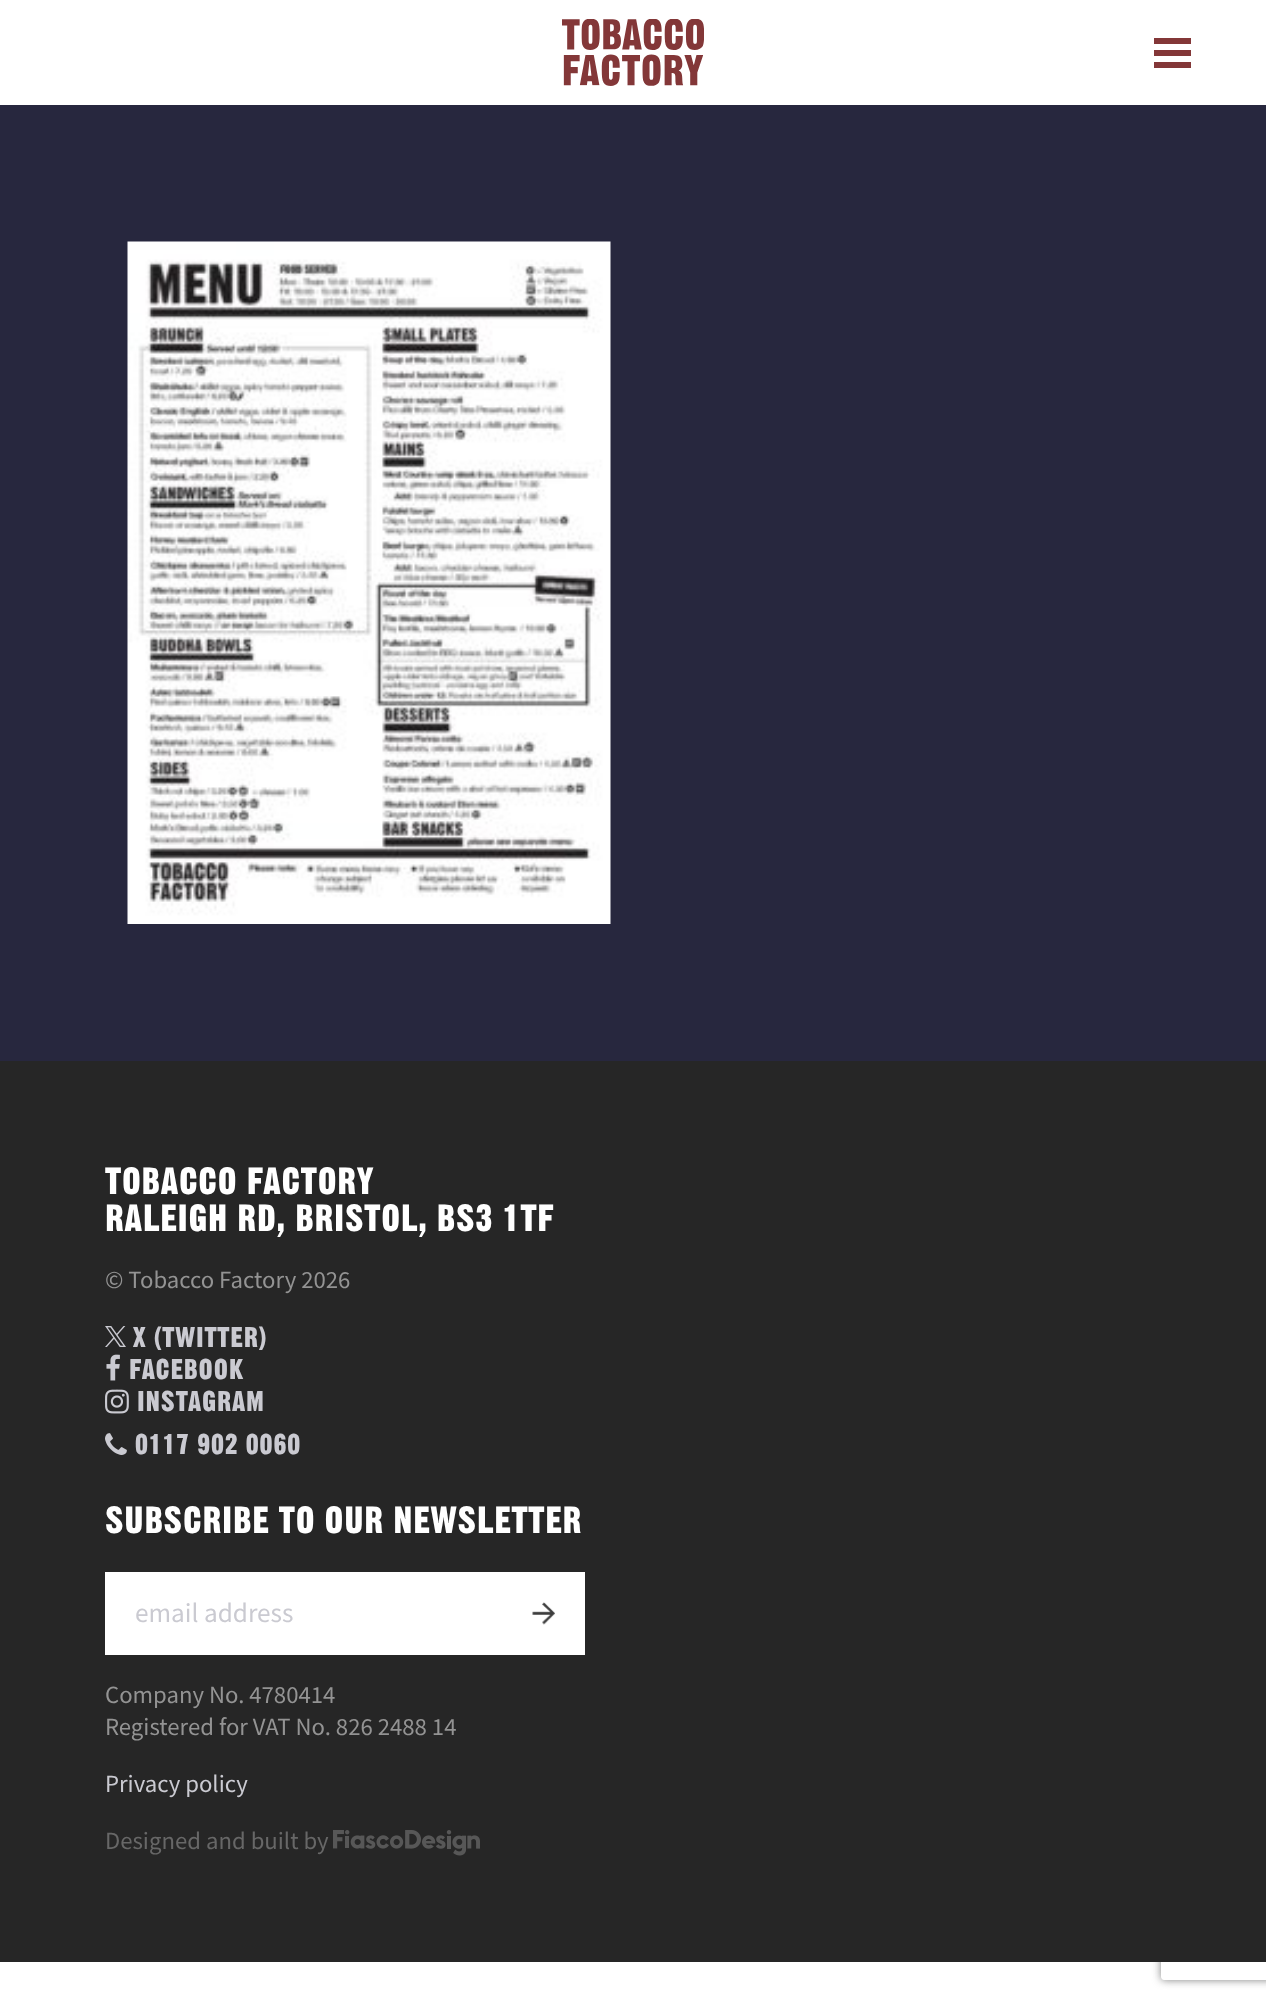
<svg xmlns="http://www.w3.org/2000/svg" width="1266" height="2001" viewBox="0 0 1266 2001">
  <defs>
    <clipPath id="clip1"><path d="M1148 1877H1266V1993H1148ZM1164 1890H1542C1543.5 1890 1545 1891.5 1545 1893V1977C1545 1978.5 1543.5 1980 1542 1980H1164C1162.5 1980 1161 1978.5 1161 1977V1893C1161 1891.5 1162.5 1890 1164 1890Z" clip-rule="evenodd"/></clipPath>
  </defs>
  <rect width="100%" height="100%" fill="#fff"/>
  <image x="562" y="19" width="142" height="67" href="img/1.png"/>
  <path d="M1154 50h37v6H1154z" fill="#833738"/>
  <path d="M1154 38h37v6H1154z" fill="#833738"/>
  <path d="M1154 62h37v6H1154z" fill="#833738"/>
  <path d="M0 105h1266v956H0z" fill="#27273e"/>
  <image x="127" y="241" width="484" height="683" href="img/2.png"/>
  <g clip-path="url(#clip1)">
    <rect x="1161" y="1890" width="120" height="90" rx="3" fill="#808080" filter="blur(4px)"/>
  </g>
  <path d="M0 1061h1266v901H0z" fill="#262626"/>
  <image x="105" y="1326" width="21" height="21" href="img/3.png"/>
  <image x="106" y="1354" width="14" height="27" href="img/4.png"/>
  <image x="105" y="1389" width="24" height="25" href="img/5.png"/>
  <image x="105" y="1433" width="22" height="22" href="img/6.png"/>
  <path d="M105 1572h480v83H105z" fill="#fff"/>
  <image x="532" y="1602" width="23" height="23" href="img/7.png"/>
  <image x="333" y="1830" width="147" height="26" href="img/8.png"/>
  <g font-family="'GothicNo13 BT'" font-size="37.1" letter-spacing="0.75" fill="#fff">
    <text x="105" y="1194">TOBACCO FACTORY</text>
    <text x="105" y="1231">RALEIGH RD, BRISTOL, BS3 1TF</text>
  </g>
  <text x="105" y="1288" font-family="Source Sans Pro" font-size="24.75" fill="#939393">© Tobacco Factory 2026</text>
  <g font-family="'GothicNo13 BT'" font-size="28" letter-spacing="0.8" fill="#cacad1">
    <text x="133" y="1347">X (TWITTER)</text>
    <text x="129" y="1379">FACEBOOK</text>
    <text x="137" y="1411">INSTAGRAM</text>
    <text x="135" y="1454">0117 902 0060</text>
  </g>
  <text x="105" y="1533" font-family="'GothicNo13 BT'" font-size="37.1" letter-spacing="0.75" fill="#fff">SUBSCRIBE TO OUR NEWSLETTER</text>
  <text x="135" y="1622" font-family="Source Sans Pro" font-size="27.25" fill="#cacad1">email address</text>
  <g font-family="Source Sans Pro" font-size="24.75" fill="#939393">
    <text x="105" y="1703">Company No. 4780414</text>
    <text x="105" y="1735">Registered for VAT No. 826 2488 14</text>
  </g>
  <text x="105" y="1792" font-family="Source Sans Pro" font-size="24.75" fill="#cacad1">Privacy policy</text>
  <text x="105" y="1849" font-family="Source Sans Pro" font-size="24.75" fill="#676767">Designed and built by</text>
</svg>
